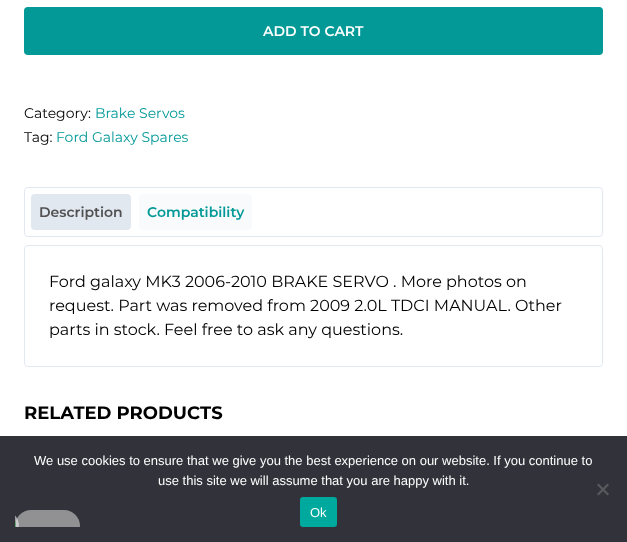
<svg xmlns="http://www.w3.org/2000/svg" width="627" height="542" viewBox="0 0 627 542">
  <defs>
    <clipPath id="clip1"><path d="M15 510h65v17H15z"/></clipPath>
  </defs>
  <rect width="100%" height="100%" fill="#fff"/>
  <rect x="24" y="7" width="579" height="48" rx="4" fill="#029997"/>
  <rect x="24.5" y="187.5" width="578" height="49" rx="3.5" fill="none" stroke="#e2e8f0"/>
  <rect x="31" y="194" width="100" height="36" rx="4" fill="#e2e8f0"/>
  <rect x="139" y="194" width="113" height="36" rx="4" fill="#f8fafc"/>
  <rect x="24.5" y="245.5" width="578" height="121" rx="3.5" fill="none" stroke="#e2e8f0"/>
  <path d="M0 436h627v106H0z" fill="#32323a"/>
  <path d="M607.5 483.5L609 485L598.5 495.5L597 494Z" fill="#59595d"/>
  <path d="M597 485L598.5 483.5L609 494L607.5 495.5Z" fill="#59595d"/>
  <rect x="300" y="497" width="37" height="30" rx="3" fill="#00a99d"/>
  <g clip-path="url(#clip1)">
    <rect x="15" y="510" width="65" height="32" rx="16" fill="#919194"/>
  </g>
  <image x="15" y="515" width="4" height="12" href="img/1.png"/>
  <text x="263" y="36" font-family="'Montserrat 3'" font-size="14" font-weight="100" fill="#fff">ADD TO CART</text>
  <text x="24" y="118" font-family="Montserrat" font-size="14" font-weight="100" fill="#000">Category:</text>
  <text x="95" y="118" font-family="Montserrat" font-size="14" font-weight="100" fill="#029997">Brake Servos</text>
  <text x="24" y="142" font-family="Montserrat" font-size="14" font-weight="100" fill="#000">Tag:</text>
  <text x="56" y="142" font-family="Montserrat" font-size="14" font-weight="100" fill="#029997">Ford Galaxy Spares</text>
  <text x="39" y="217" font-family="'Montserrat 3'" font-size="14" font-weight="100" fill="#515151">Description</text>
  <text x="147" y="217" font-family="'Montserrat 3'" font-size="14" font-weight="100" fill="#029997">Compatibility</text>
  <g font-family="Montserrat" font-size="16" font-weight="100" fill="#000">
    <text x="49" y="287">Ford galaxy MK3 2006-2010 BRAKE SERVO . More photos on</text>
    <text x="49" y="311">request. Part was removed from 2009 2.0L TDCI MANUAL. Other</text>
    <text x="49" y="335">parts in stock. Feel free to ask any questions.</text>
  </g>
  <text x="24" y="419" font-family="'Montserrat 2'" font-size="18" font-weight="100" fill="#000">RELATED PRODUCTS</text>
  <g font-family="Liberation Sans" font-size="13" fill="#fff">
    <text x="34" y="465">We use cookies to ensure that we give you the best experience on our website. If you continue to</text>
    <text x="158" y="485">use this site we will assume that you are happy with it.</text>
    <text x="310" y="517">Ok</text>
  </g>
</svg>
